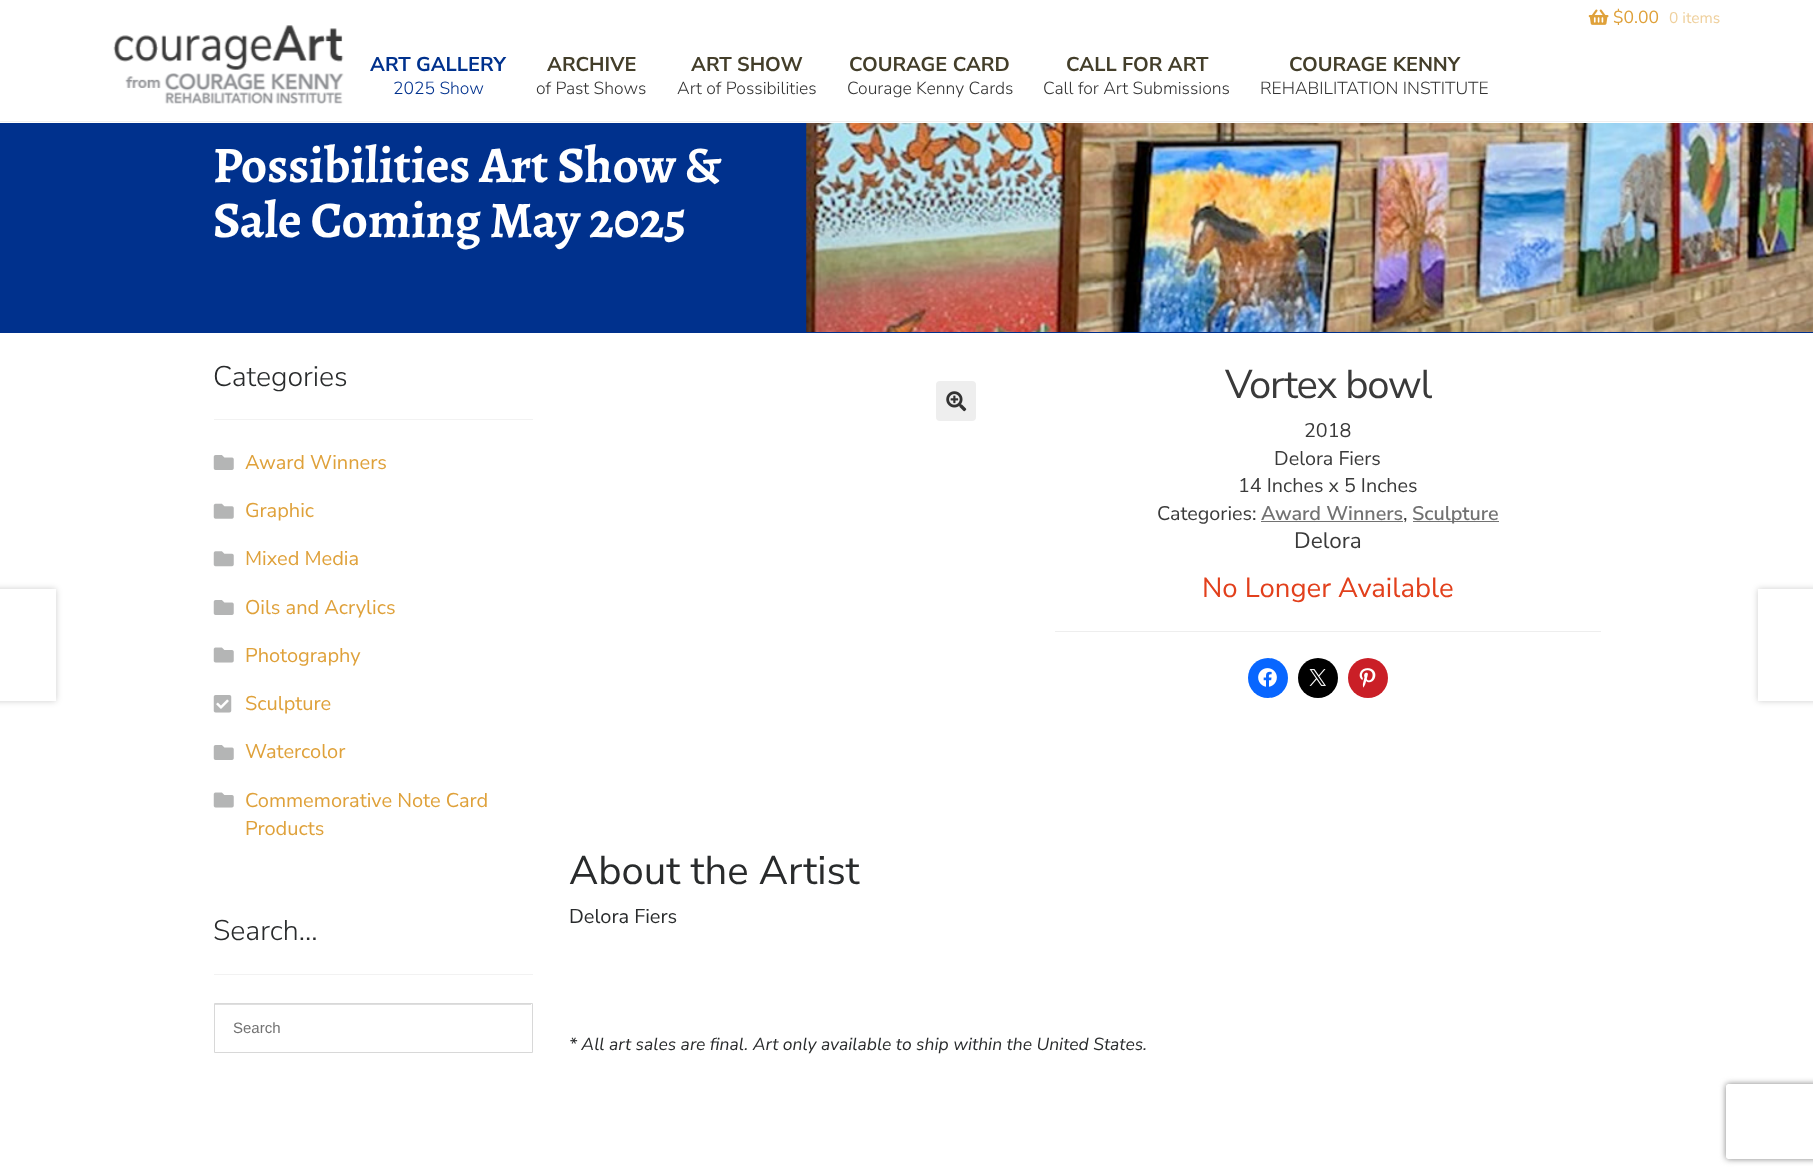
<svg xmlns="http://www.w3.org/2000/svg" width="1813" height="1176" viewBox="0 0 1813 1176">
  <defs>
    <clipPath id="clip1"><path d="M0 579H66V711H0ZM-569 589H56V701H-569Z" clip-rule="evenodd"/></clipPath>
    <clipPath id="clip2"><path d="M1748 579H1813V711H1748ZM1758 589H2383V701H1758Z" clip-rule="evenodd"/></clipPath>
    <clipPath id="clip3"><path d="M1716 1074H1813V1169H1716ZM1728.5 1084H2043.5C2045 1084 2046 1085 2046 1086.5V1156.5C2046 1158 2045 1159 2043.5 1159H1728.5C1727 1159 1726 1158 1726 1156.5V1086.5C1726 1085 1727 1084 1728.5 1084Z" clip-rule="evenodd"/></clipPath>
  </defs>
  <rect width="100%" height="100%" fill="#fff"/>
  <path d="M0 121h1813v1H0z" fill="#f0f0f0"/>
  <image x="113" y="25" width="231" height="79" href="img/1.png"/>
  <image x="1588" y="9" width="21" height="16" href="img/2.png"/>
  <path d="M0 123h1813v210H0z" fill="#00318d"/>
  <image x="806" y="123" width="1007" height="209" href="img/3.png"/>
  <path d="M214 419h319v1H214z" fill="#f2f2f2"/>
  <image x="213" y="455" width="21" height="15" href="img/4.png"/>
  <image x="213" y="503" width="21" height="16" href="img/5.png"/>
  <image x="213" y="551" width="21" height="16" href="img/6.png"/>
  <image x="213" y="600" width="21" height="15" href="img/4.png"/>
  <image x="213" y="647" width="21" height="16" href="img/7.png"/>
  <image x="213" y="695" width="19" height="18" href="img/8.png"/>
  <image x="213" y="745" width="21" height="15" href="img/4.png"/>
  <image x="213" y="792" width="21" height="16" href="img/7.png"/>
  <path d="M214 974h319v1H214z" fill="#f2f2f2"/>
  <path d="M215 1004h316v1H215z" fill="#dfdfdf"/>
  <path d="M214.5 1003.5h318v49H214.5z" fill="none" stroke="#d8d8d8"/>
  <rect x="936" y="381" width="40" height="40" rx="4" fill="#eee"/>
  <image x="946" y="391" width="21" height="21" href="img/9.png"/>
  <path d="M1261 521h142v1H1261z" fill="#727272"/>
  <path d="M1413 521h86v1H1413z" fill="#727272"/>
  <path d="M1055 631h546v1H1055z" fill="#eee"/>
  <circle cx="1268" cy="678" r="20" fill="#0866ff"/>
  <image x="1258" y="668" width="19" height="19" href="img/10.png"/>
  <circle cx="1318" cy="678" r="20" fill="#000"/>
  <image x="1309" y="669" width="17" height="17" href="img/11.png"/>
  <circle cx="1368" cy="678" r="20" fill="#ca1f27"/>
  <image x="1359" y="668" width="17" height="20" href="img/12.png"/>
  <g clip-path="url(#clip1)">
    <path d="M-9 589h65v112H-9z" fill="#00000033" filter="blur(3px)"/>
  </g>
  <g clip-path="url(#clip2)">
    <path d="M1758 589h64v112H1758z" fill="#00000033" filter="blur(3px)"/>
  </g>
  <g clip-path="url(#clip3)">
    <rect x="1726" y="1084" width="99" height="75" rx="2.5" fill="#808080" filter="blur(3px)"/>
  </g>
  <text x="1613" y="23" font-family="Nunito Sans" font-size="17.5" fill="#dfa13a">$0.00</text>
  <text x="1669" y="23" font-family="Nunito Sans" font-size="15.5" fill="#efd09d">0 items</text>
  <text x="370" y="71" font-family="Nunito Sans" font-size="20" font-weight="bold" fill="#00318d">ART GALLERY</text>
  <text x="393" y="94" font-family="Nunito Sans" font-size="17.5" font-weight="300" fill="#00318d">2025 Show</text>
  <text x="547" y="71" font-family="Nunito Sans" font-size="20" font-weight="bold" fill="#433e2a">ARCHIVE</text>
  <text x="536" y="94" font-family="Nunito Sans" font-size="17.5" font-weight="300" fill="#333">of Past Shows</text>
  <text x="691" y="71" font-family="Nunito Sans" font-size="20" font-weight="bold" fill="#433e2a">ART SHOW</text>
  <text x="677" y="94" font-family="Nunito Sans" font-size="17.5" font-weight="300" fill="#333">Art of Possibilities</text>
  <text x="849" y="71" font-family="Nunito Sans" font-size="20" font-weight="bold" fill="#433e2a">COURAGE CARD</text>
  <text x="847" y="94" font-family="Nunito Sans" font-size="17.5" font-weight="300" fill="#333">Courage Kenny Cards</text>
  <text x="1066" y="71" font-family="Nunito Sans" font-size="20" font-weight="bold" fill="#433e2a">CALL FOR ART</text>
  <text x="1043" y="94" font-family="Nunito Sans" font-size="17.5" font-weight="300" fill="#333">Call for Art Submissions</text>
  <text x="1289" y="71" font-family="Nunito Sans" font-size="20" font-weight="bold" fill="#433e2a">COURAGE KENNY</text>
  <text x="1260" y="94" font-family="Nunito Sans" font-size="17.5" font-weight="300" fill="#333">REHABILITATION INSTITUTE</text>
  <g font-family="Alegreya" font-size="51.25" font-weight="bold" fill="#fff">
    <text x="213" y="182">Possibilities Art Show &amp;</text>
    <text x="213" y="237">Sale Coming May 2025</text>
  </g>
  <text x="213" y="386" font-family="Nunito Sans" font-size="28.5" font-weight="300" fill="#292b2c">Categories</text>
  <g font-family="Nunito Sans" font-size="20" fill="#dfa13a">
    <text x="245" y="469">Award Winners</text>
    <text x="245" y="517">Graphic</text>
    <text x="245" y="565">Mixed Media</text>
    <text x="245" y="614">Oils and Acrylics</text>
    <text x="245" y="662">Photography</text>
    <text x="245" y="710">Sculpture</text>
    <text x="245" y="758">Watercolor</text>
    <text x="245" y="807">Commemorative Note Card</text>
    <text x="245" y="835">Products</text>
  </g>
  <text x="213" y="940" font-family="Nunito Sans" font-size="28.5" font-weight="300" fill="#292b2c">Search…</text>
  <text x="233" y="1033" font-family="Liberation Sans" font-size="15" fill="#727272">Search</text>
  <text x="1225" y="398" font-family="Nunito Sans" font-size="40" letter-spacing="-1.25" fill="#3a3a3a">Vortex bowl</text>
  <g font-family="Nunito Sans" font-size="19.75" fill="#3a3a3a">
    <text x="1304" y="437">2018</text>
    <text x="1274" y="465">Delora Fiers</text>
    <text x="1238" y="492">14 Inches x 5 Inches</text>
    <text x="1157" y="520">Categories:</text>
  </g>
  <text x="1261" y="520" font-family="Nunito Sans" font-size="19.75" font-weight="600" fill="#727272">Award Winners</text>
  <text x="1403" y="520" font-family="Nunito Sans" font-size="19.75" fill="#3a3a3a">,</text>
  <text x="1412" y="520" font-family="Nunito Sans" font-size="19.75" font-weight="600" fill="#727272">Sculpture</text>
  <text x="1294" y="548" font-family="Nunito Sans" font-size="22.5" fill="#3a3a3a">Delora</text>
  <text x="1202" y="597" font-family="Nunito Sans" font-size="27.5" fill="#e2401c">No Longer Available</text>
  <text x="569" y="884" font-family="Nunito Sans" font-size="40" fill="#292b2c">About the Artist</text>
  <text x="569" y="923" font-family="Nunito Sans" font-size="20" fill="#292b2c">Delora Fiers</text>
  <text x="569" y="1050" font-family="Nunito Sans" font-size="17.5" font-style="italic" fill="#292b2c">* All art sales are final. Art only available to ship within the United States.</text>
</svg>
